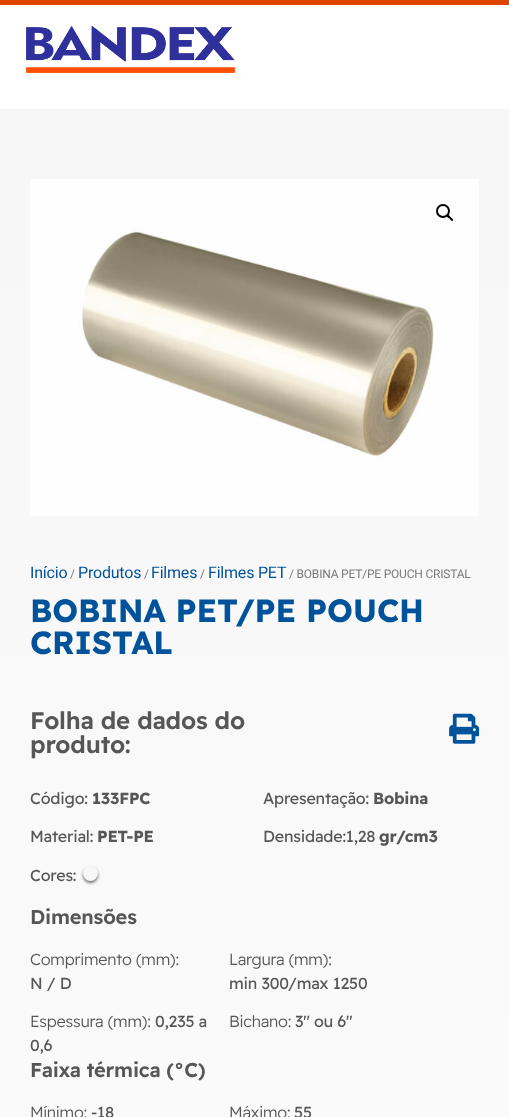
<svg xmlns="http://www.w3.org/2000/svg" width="509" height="1117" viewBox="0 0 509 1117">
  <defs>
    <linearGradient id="g1" gradientUnits="userSpaceOnUse" x1="254" y1="109" x2="255" y2="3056"><stop offset="0" stop-color="#f7f7f7"/><stop offset="1" stop-color="#fff"/></linearGradient>
  </defs>
  <rect width="100%" height="100%" fill="#fff"/>
  <path d="M0 0h509v5H0z" fill="#e04403"/>
  <image x="26" y="26" width="209" height="47" href="img/1.png"/>
  <path d="M0 109h509v1008H0z" fill="url(#g1)"/>
  <image x="30" y="179" width="449" height="337" href="img/2.png"/>
  <circle cx="443" cy="211" r="6" fill="none" stroke="#000" stroke-width="2"/>
  <path d="M447 215C448.5 214 450 216.5 450.5 217C451.5 218 454 219.5 453 220.5C451.5 222 450 219 449.5 218.5C448.5 218 446 216.5 447 215Z" fill="#000"/>
  <image x="449" y="713" width="31" height="31" href="img/3.png"/>
  <rect x="83" y="868" width="15" height="15" rx="7.5" fill="#0000008c" filter="blur(1.5px)"/>
  <circle cx="90.5" cy="873.5" r="7.5" fill="#f7f7f7"/>
  <text x="30" y="578" font-family="Roboto" font-size="16" letter-spacing="-0.2" fill="#00539b">Início</text>
  <text x="70" y="578" font-family="Roboto" font-size="12" letter-spacing="-0.2" fill="#7a7a7a">/</text>
  <text x="78" y="578" font-family="Roboto" font-size="16" letter-spacing="-0.2" fill="#00539b">Produtos</text>
  <text x="144" y="578" font-family="Roboto" font-size="12" letter-spacing="-0.2" fill="#7a7a7a">/</text>
  <text x="151" y="578" font-family="Roboto" font-size="16" letter-spacing="-0.2" fill="#00539b">Filmes</text>
  <text x="200" y="578" font-family="Roboto" font-size="12" letter-spacing="-0.2" fill="#7a7a7a">/</text>
  <text x="208" y="578" font-family="Roboto" font-size="16" letter-spacing="-0.2" fill="#00539b">Filmes PET</text>
  <text x="289" y="578" font-family="Roboto" font-size="12" letter-spacing="-0.2" fill="#7a7a7a">/ BOBINA PET/PE POUCH CRISTAL</text>
  <g font-family="Readex Pro" font-size="32" font-weight="bold" letter-spacing="-0.2" fill="#00539b">
    <text x="30" y="622">BOBINA PET/PE POUCH</text>
    <text x="30" y="654">CRISTAL</text>
  </g>
  <g font-family="Readex Pro" font-size="24" font-weight="600" letter-spacing="-0.2" fill="#565656">
    <text x="30" y="729">Folha de dados do</text>
    <text x="30" y="753">produto:</text>
  </g>
  <text x="30" y="804" font-family="Readex Pro" font-size="16" letter-spacing="-0.2" fill="#565656">Código:</text>
  <text x="92" y="804" font-family="Readex Pro" font-size="16" font-weight="bold" letter-spacing="-0.2" fill="#565656">133FPC</text>
  <text x="263" y="804" font-family="Readex Pro" font-size="16" letter-spacing="-0.2" fill="#565656">Apresentação:</text>
  <text x="373" y="804" font-family="Readex Pro" font-size="16" font-weight="bold" letter-spacing="-0.2" fill="#565656">Bobina</text>
  <text x="30" y="842" font-family="Readex Pro" font-size="16" letter-spacing="-0.2" fill="#565656">Material:</text>
  <text x="97" y="842" font-family="Readex Pro" font-size="16" font-weight="bold" letter-spacing="-0.2" fill="#565656">PET-PE</text>
  <text x="263" y="842" font-family="Readex Pro" font-size="16" letter-spacing="-0.2" fill="#565656">Densidade:1,28</text>
  <text x="379" y="842" font-family="Readex Pro" font-size="16" font-weight="bold" letter-spacing="-0.2" fill="#565656">gr/cm3</text>
  <text x="30" y="881" font-family="Readex Pro" font-size="16" letter-spacing="-0.2" fill="#565656">Cores:</text>
  <text x="30" y="924" font-family="Readex Pro" font-size="20" font-weight="600" letter-spacing="-0.2" fill="#565656">Dimensões</text>
  <text x="30" y="965" font-family="Readex Pro" font-size="16" font-weight="300" letter-spacing="-0.2" fill="#565656">Comprimento (mm):</text>
  <text x="30" y="989" font-family="Readex Pro" font-size="16" letter-spacing="-0.2" fill="#565656">N / D</text>
  <text x="229" y="965" font-family="Readex Pro" font-size="16" font-weight="300" letter-spacing="-0.2" fill="#565656">Largura (mm):</text>
  <g font-family="Readex Pro" font-size="16" letter-spacing="-0.2" fill="#565656">
    <text x="229" y="989">min 300</text>
    <text x="288" y="989">/max 1250</text>
  </g>
  <text x="30" y="1027" font-family="Readex Pro" font-size="16" font-weight="300" letter-spacing="-0.2" fill="#565656">Espessura (mm):</text>
  <g font-family="Readex Pro" font-size="16" letter-spacing="-0.2" fill="#565656">
    <text x="155" y="1027">0,235 a</text>
    <text x="30" y="1051">0,6</text>
  </g>
  <text x="229" y="1027" font-family="Readex Pro" font-size="16" font-weight="300" letter-spacing="-0.2" fill="#565656">Bichano:</text>
  <text x="295" y="1027" font-family="Readex Pro" font-size="16" letter-spacing="-0.2" fill="#565656">3″ ou 6″</text>
  <text x="30" y="1077" font-family="Readex Pro" font-size="20" font-weight="600" letter-spacing="-0.2" fill="#565656">Faixa térmica (°C)</text>
  <text x="30" y="1118" font-family="Readex Pro" font-size="16" font-weight="300" letter-spacing="-0.2" fill="#565656">Mínimo:</text>
  <text x="91" y="1118" font-family="Readex Pro" font-size="16" letter-spacing="-0.2" fill="#565656">-18</text>
  <text x="229" y="1118" font-family="Readex Pro" font-size="16" font-weight="300" letter-spacing="-0.2" fill="#565656">Máximo:</text>
  <text x="294" y="1118" font-family="Readex Pro" font-size="16" letter-spacing="-0.2" fill="#565656">55</text>
</svg>
